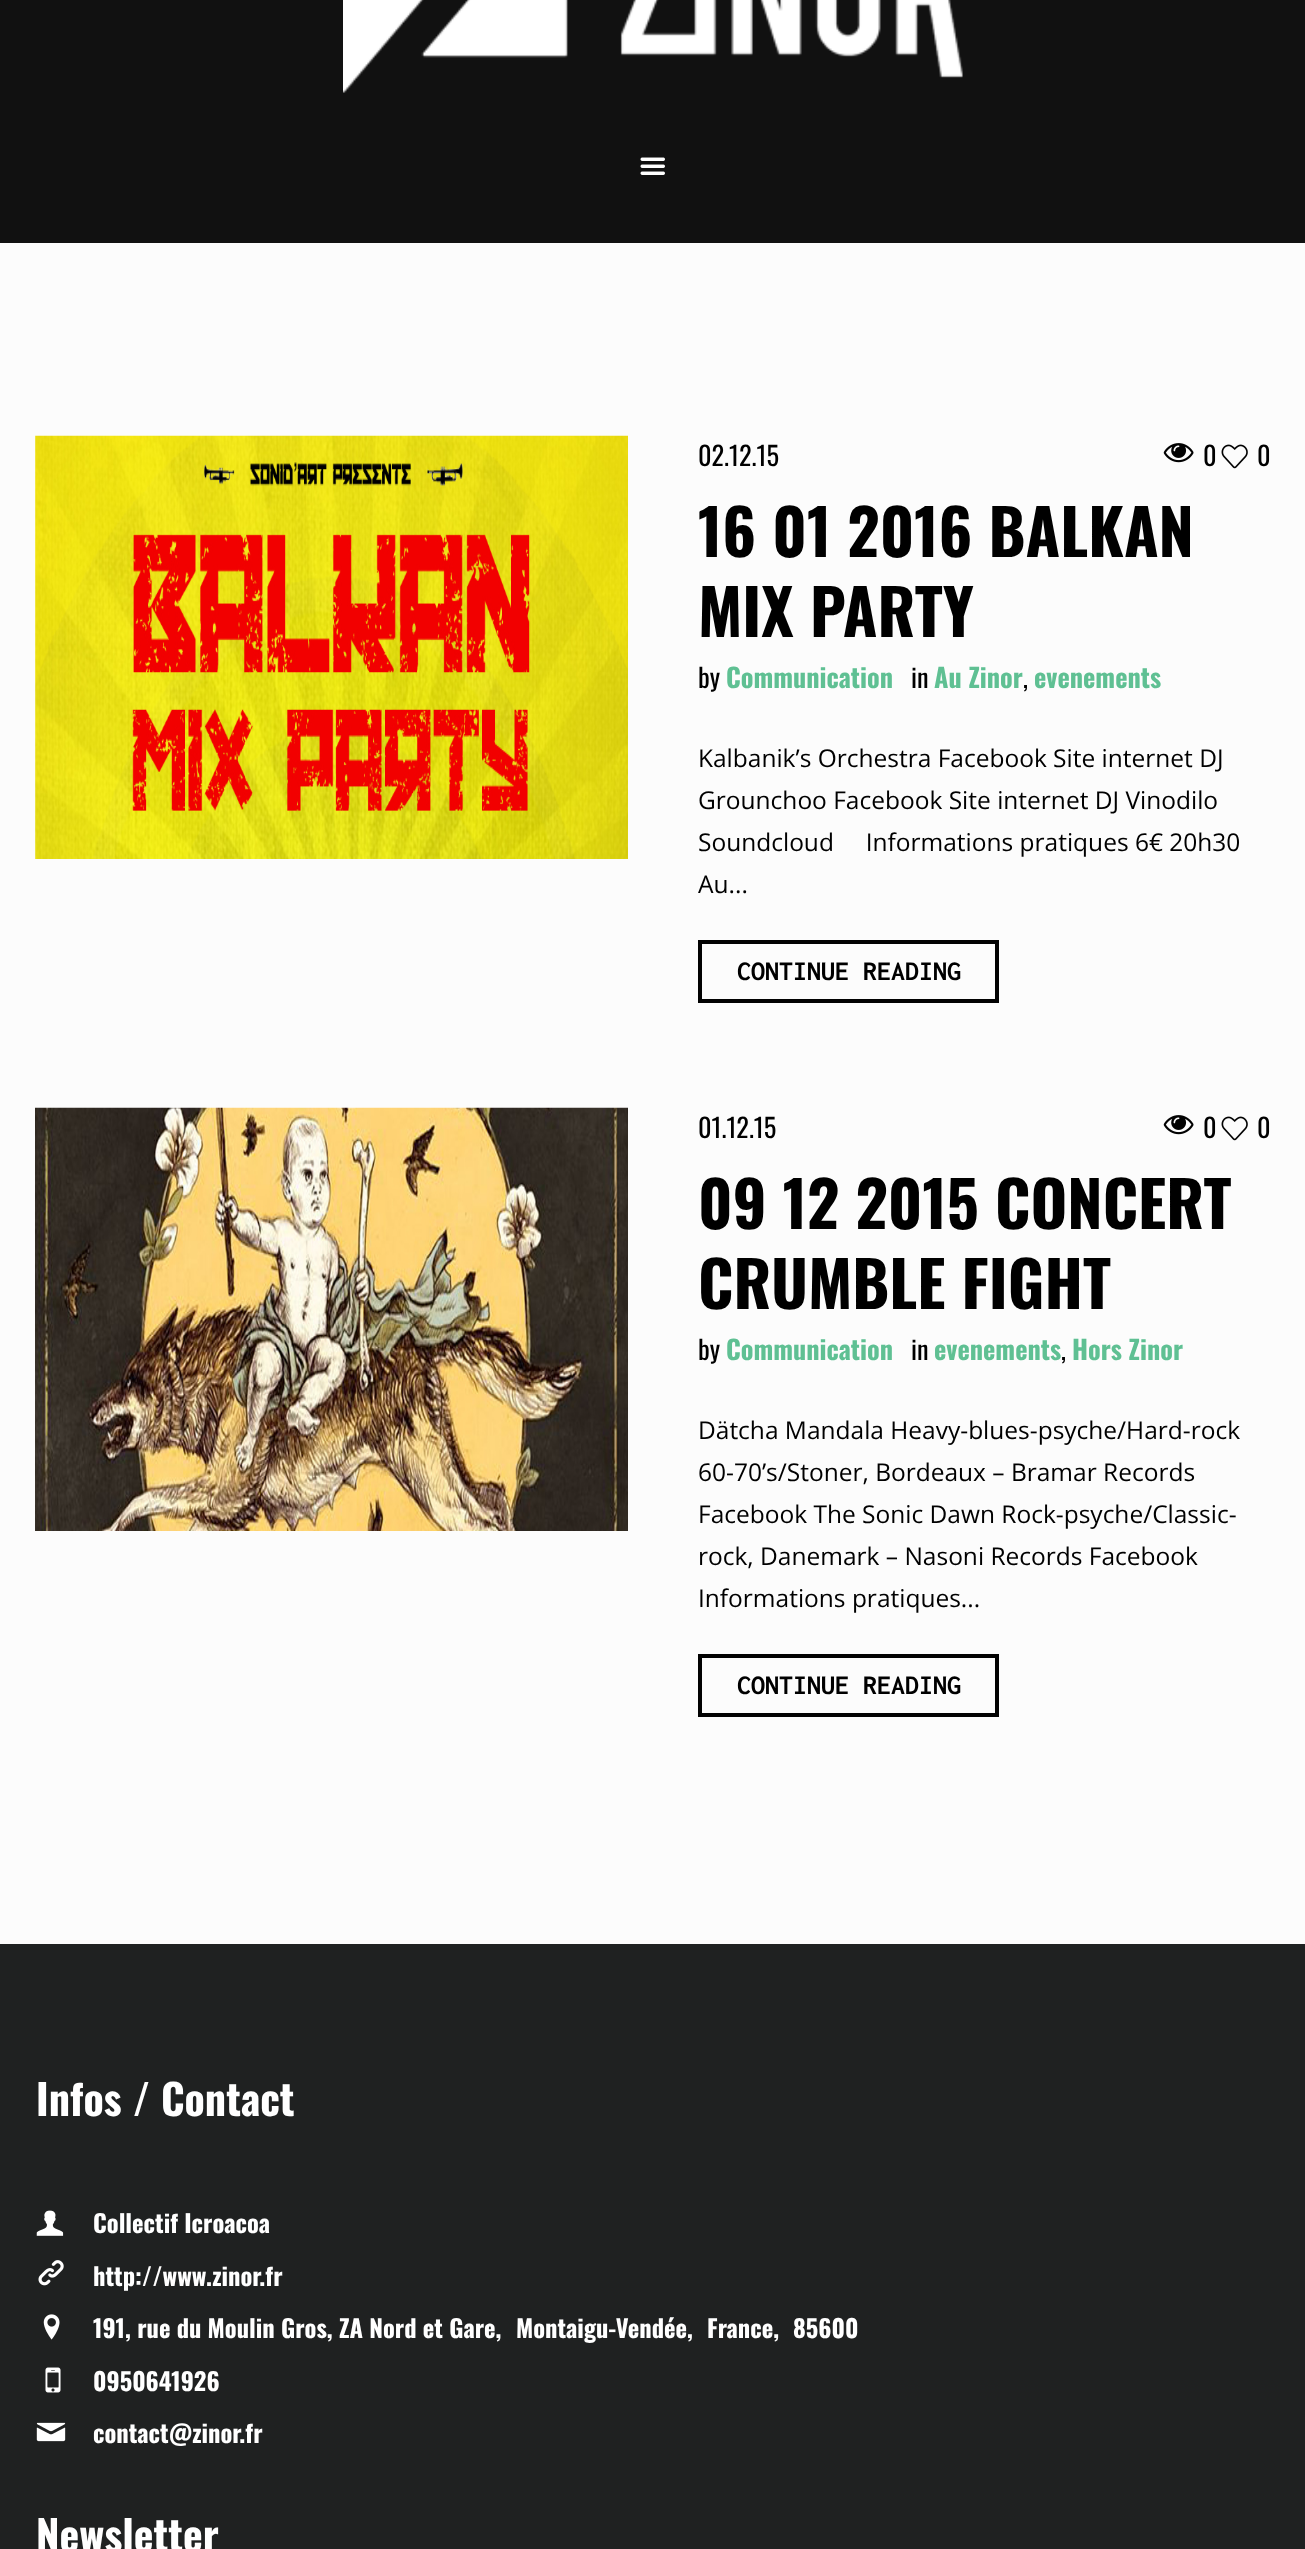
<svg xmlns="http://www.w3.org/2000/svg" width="1305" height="2549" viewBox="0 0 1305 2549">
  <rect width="100%" height="100%" fill="#fcfcfc"/>
  <path d="M0 0h1305v243H0z" fill="#111"/>
  <image x="343" y="0" width="620" height="93" href="img/1.png"/>
  <image x="640" y="157" width="25" height="18" href="img/2.png"/>
  <image x="35" y="435" width="593" height="424" href="img/3.png"/>
  <image x="1163" y="443" width="31" height="20" href="img/4.png"/>
  <image x="1221" y="444" width="27" height="25" href="img/5.png"/>
  <path d="M700 942h297v59H700z" fill="none" stroke="#020202" stroke-width="4"/>
  <image x="35" y="1107" width="593" height="424" href="img/6.png"/>
  <image x="1163" y="1115" width="31" height="20" href="img/4.png"/>
  <image x="1221" y="1116" width="27" height="25" href="img/5.png"/>
  <path d="M700 1656h297v59H700z" fill="none" stroke="#020202" stroke-width="4"/>
  <path d="M0 1944h1305v605H0z" fill="#1f2121"/>
  <image x="36" y="2210" width="28" height="26" href="img/7.png"/>
  <image x="38" y="2260" width="26" height="26" href="img/8.png"/>
  <image x="43" y="2314" width="17" height="26" href="img/9.png"/>
  <image x="45" y="2367" width="16" height="26" href="img/10.png"/>
  <image x="36" y="2422" width="30" height="20" href="img/11.png"/>
  <g font-family="Oswald" font-size="26.25" fill="#000">
    <text x="698" y="466">02.12.15</text>
    <text x="1203" y="466">0</text>
    <text x="1257" y="466">0</text>
  </g>
  <g font-family="Oswald" font-size="63" font-weight="bold" fill="#000">
    <text x="698" y="557">16 01 2016 BALKAN</text>
    <text x="698" y="637">MIX PARTY</text>
  </g>
  <text x="698" y="688" font-family="Oswald" font-size="26.25" fill="#000">by</text>
  <text x="726" y="688" font-family="Oswald" font-size="26.25" font-weight="bold" fill="#5fc093">Communication</text>
  <text x="911" y="688" font-family="Oswald" font-size="26.25" fill="#000">in</text>
  <text x="934" y="688" font-family="Oswald" font-size="26.25" font-weight="bold" fill="#5fc093">Au Zinor</text>
  <text x="1023" y="688" font-family="Oswald" font-size="26.25" fill="#000">,</text>
  <text x="1034" y="688" font-family="Oswald" font-size="26.25" font-weight="bold" fill="#5fc093">evenements</text>
  <g font-family="Open Sans" font-size="24.5" fill="#000">
    <text x="698" y="767">Kalbanik’s Orchestra Facebook Site internet DJ</text>
    <text x="698" y="809">Grounchoo Facebook Site internet DJ Vinodilo</text>
    <text x="698" y="851" xml:space="preserve">Soundcloud     Informations pratiques 6€ 20h30</text>
    <text x="698" y="893">Au...</text>
  </g>
  <text x="737" y="980" font-family="Inconsolata" font-size="28" font-weight="bold" fill="#000">CONTINUE READING</text>
  <g font-family="Oswald" font-size="26.25" fill="#000">
    <text x="698" y="1138">01.12.15</text>
    <text x="1203" y="1138">0</text>
    <text x="1257" y="1138">0</text>
  </g>
  <g font-family="Oswald" font-size="63" font-weight="bold" fill="#000">
    <text x="698" y="1229">09 12 2015 CONCERT</text>
    <text x="698" y="1309">CRUMBLE FIGHT</text>
  </g>
  <text x="698" y="1360" font-family="Oswald" font-size="26.25" fill="#000">by</text>
  <text x="726" y="1360" font-family="Oswald" font-size="26.25" font-weight="bold" fill="#5fc093">Communication</text>
  <text x="911" y="1360" font-family="Oswald" font-size="26.25" fill="#000">in</text>
  <text x="934" y="1360" font-family="Oswald" font-size="26.25" font-weight="bold" fill="#5fc093">evenements</text>
  <text x="1061" y="1360" font-family="Oswald" font-size="26.25" fill="#000">,</text>
  <text x="1072" y="1360" font-family="Oswald" font-size="26.25" font-weight="bold" fill="#5fc093">Hors Zinor</text>
  <g font-family="Open Sans" font-size="24.5" fill="#000">
    <text x="698" y="1439">Dätcha Mandala Heavy-blues-psyche/Hard-rock</text>
    <text x="698" y="1481">60-70’s/Stoner, Bordeaux – Bramar Records</text>
    <text x="698" y="1523">Facebook The Sonic Dawn Rock-psyche/Classic-</text>
    <text x="698" y="1565">rock, Danemark – Nasoni Records Facebook</text>
    <text x="698" y="1607">Informations pratiques...</text>
  </g>
  <text x="737" y="1694" font-family="Inconsolata" font-size="28" font-weight="bold" fill="#000">CONTINUE READING</text>
  <text x="36" y="2116" font-family="Oswald" font-size="42" font-weight="bold" fill="#fff">Infos / Contact</text>
  <g font-family="Oswald" font-size="24.5" font-weight="bold" fill="#fff">
    <text x="93" y="2233">Collectif Icroacoa</text>
    <text x="93" y="2286">http://www.zinor.fr</text>
    <text x="93" y="2338">191, rue du Moulin Gros, ZA Nord et Gare,</text>
    <text x="516" y="2338">Montaigu-Vendée,</text>
    <text x="707" y="2338">France,</text>
    <text x="793" y="2338">85600</text>
    <text x="93" y="2391">0950641926</text>
    <text x="93" y="2443">contact@zinor.fr</text>
  </g>
  <text x="36" y="2552" font-family="Oswald" font-size="42" font-weight="bold" fill="#fff">Newsletter</text>
</svg>
